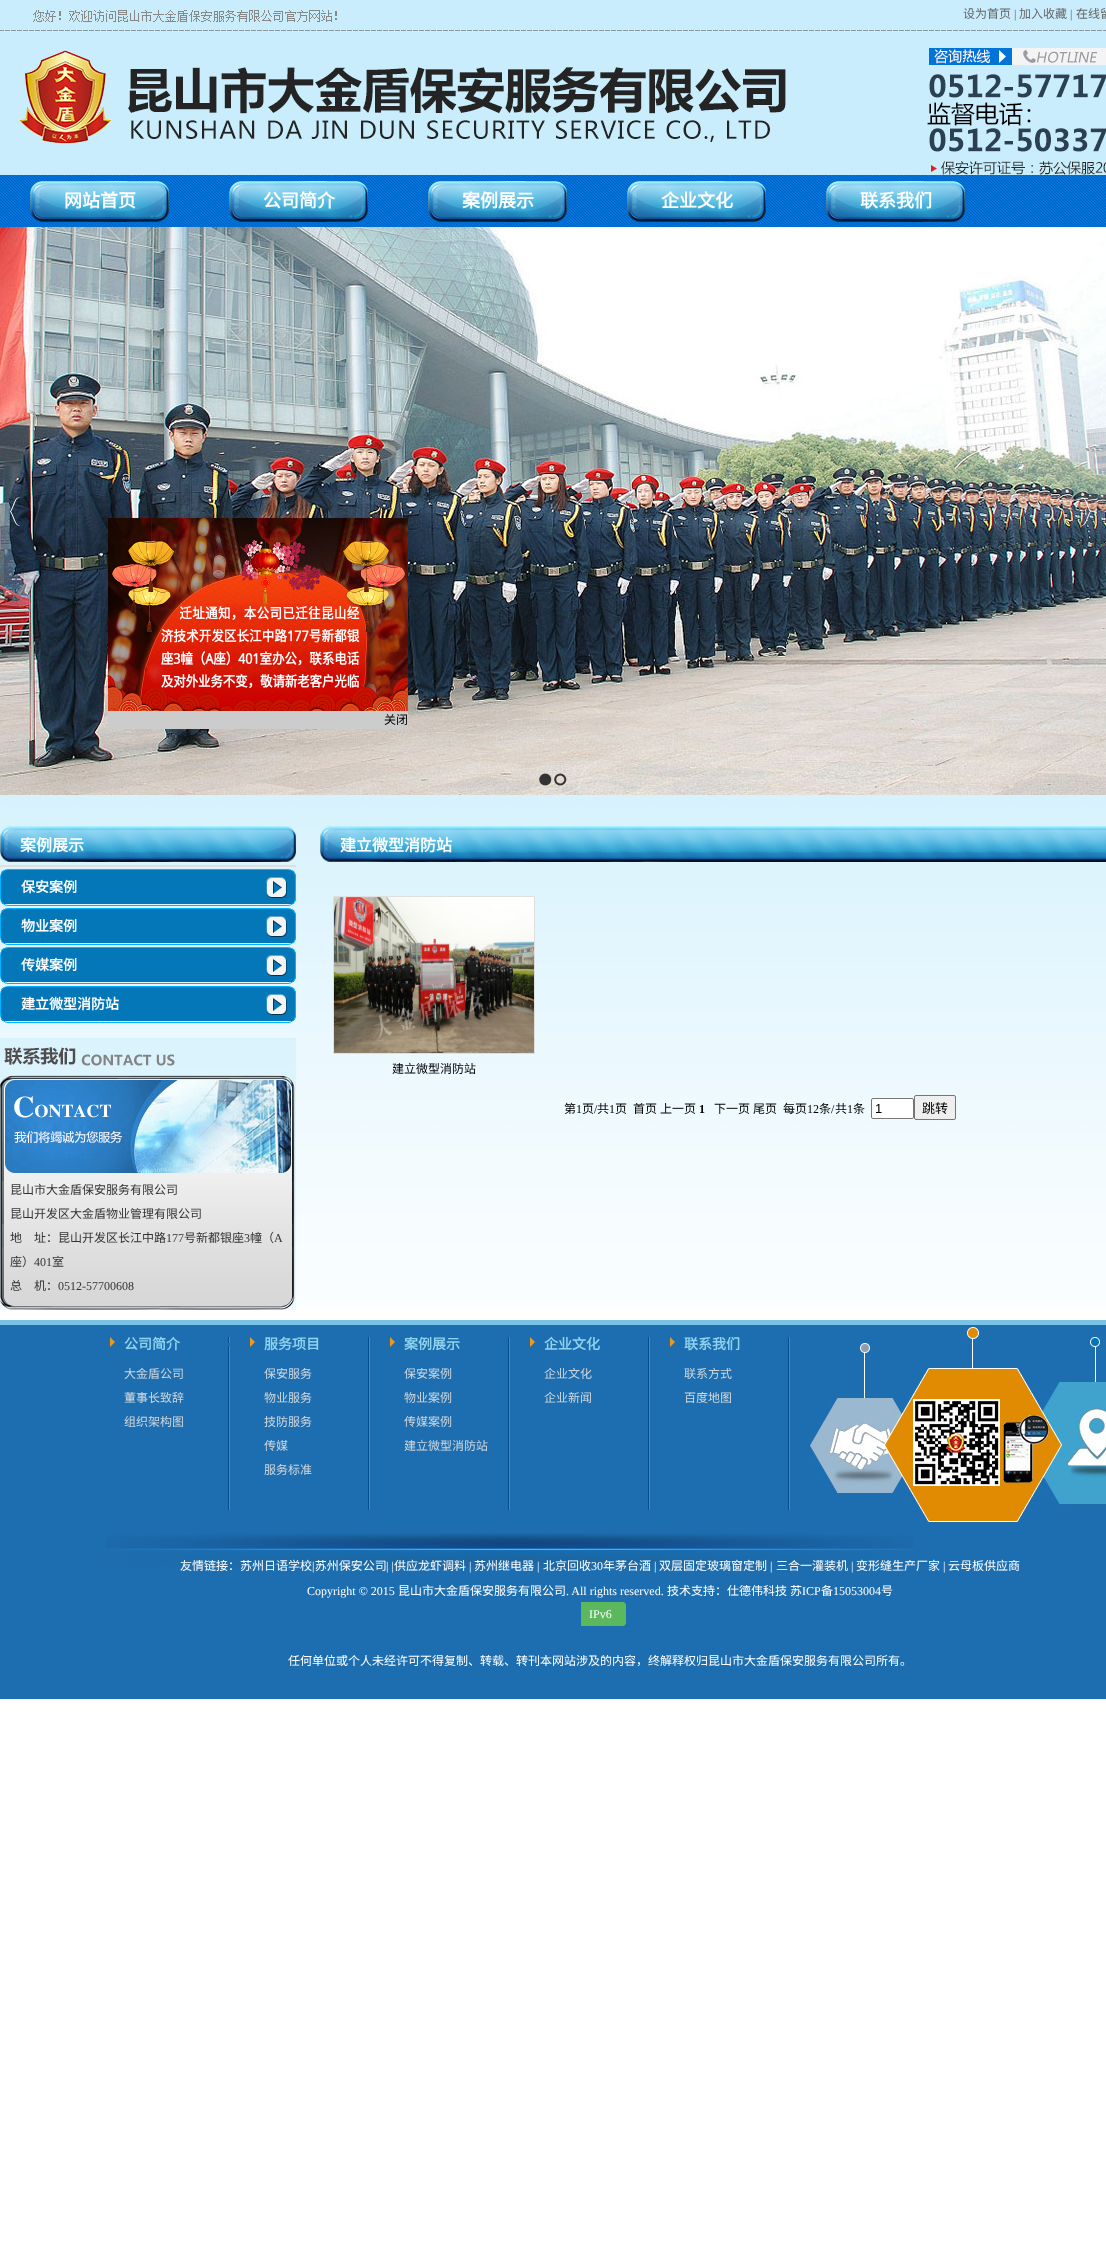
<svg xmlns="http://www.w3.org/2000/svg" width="1106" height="2263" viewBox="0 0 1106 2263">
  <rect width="100%" height="100%" fill="#fff"/>
  <image x="0" y="0" width="1106" height="1308" href="img/1.png"/>
  <image x="0" y="8" width="1106" height="167" href="img/2.png"/>
  <image x="0" y="175" width="1106" height="52" href="img/3.png"/>
  <image x="30" y="175" width="139" height="52" href="img/4.png"/>
  <image x="229" y="175" width="139" height="52" href="img/4.png"/>
  <image x="428" y="175" width="139" height="52" href="img/4.png"/>
  <image x="627" y="175" width="139" height="52" href="img/4.png"/>
  <image x="826" y="175" width="139" height="52" href="img/4.png"/>
  <image x="0" y="227" width="1106" height="568" href="img/5.png"/>
  <image x="539" y="773" width="13" height="13" href="img/6.png"/>
  <image x="554" y="773" width="13" height="13" href="img/7.png"/>
  <image x="10" y="497" width="11" height="29" href="img/8.png"/>
  <image x="1080" y="497" width="11" height="29" href="img/9.png"/>
  <image x="108" y="518" width="300" height="193" href="img/10.png"/>
  <path d="M108 711h300v18H108z" fill="#ccc"/>
  <path d="M0 1325h1106v374H0z" fill="#1d6eb0"/>
  <image x="106" y="1533" width="807" height="35" href="img/11.png"/>
  <path d="M581 1602H623C624.5 1602 626 1603.5 626 1605V1623C626 1624.5 624.5 1626 623 1626H581Z" fill="#5cb85c"/>
  <image x="0" y="826" width="296" height="36" href="img/12.png"/>
  <path d="M0 865h296v2H0z" fill="#dfdfdf"/>
  <image x="1" y="870" width="295" height="34" href="img/13.png"/>
  <rect x="0.5" y="869.5" width="295" height="36" rx="7.5" fill="none" stroke="#00b3ff"/>
  <image x="1" y="909" width="295" height="34" href="img/14.png"/>
  <rect x="0.5" y="908.5" width="295" height="36" rx="7.5" fill="none" stroke="#00b3ff"/>
  <image x="1" y="948" width="295" height="34" href="img/15.png"/>
  <rect x="0.5" y="947.5" width="295" height="36" rx="7.5" fill="none" stroke="#00b3ff"/>
  <image x="1" y="987" width="295" height="34" href="img/16.png"/>
  <rect x="0.5" y="986.5" width="295" height="36" rx="7.5" fill="none" stroke="#00b3ff"/>
  <image x="0" y="1038" width="296" height="272" href="img/17.png"/>
  <image x="228" y="1337" width="2" height="173" href="img/20.png"/>
  <path d="M228 1343h2v3H228z" fill="#1d6eb0"/>
  <image x="320" y="826" width="786" height="36" href="img/18.png"/>
  <path d="M333.5 896.5h201v157H333.5z" fill="none" stroke="#dfdfdf"/>
  <image x="334" y="897" width="200" height="156" href="img/19.png"/>
  <rect x="871.5" y="1098.5" width="42" height="20" rx="1.5" fill="#fff" stroke="#767676"/>
  <rect x="914.5" y="1095.5" width="41" height="24" rx="1.5" fill="#efefef" stroke="#767676"/>
  <path d="M0 1320h1106v5H0z" fill="#7ac3e4"/>
  <image x="110" y="1337" width="5" height="10" href="img/21.png"/>
  <image x="368" y="1337" width="2" height="173" href="img/20.png"/>
  <image x="250" y="1337" width="5" height="10" href="img/21.png"/>
  <image x="508" y="1337" width="2" height="173" href="img/20.png"/>
  <image x="390" y="1337" width="5" height="10" href="img/21.png"/>
  <image x="648" y="1337" width="2" height="173" href="img/20.png"/>
  <image x="530" y="1337" width="5" height="10" href="img/21.png"/>
  <image x="788" y="1337" width="2" height="173" href="img/20.png"/>
  <image x="670" y="1337" width="5" height="10" href="img/21.png"/>
  <image x="810" y="1327" width="296" height="197" href="img/22.png"/>
  <text x="963" y="18" font-family="Noto Sans CJK SC" font-size="12" fill="#666">设为首页</text>
  <text x="1014" y="18" font-family="Liberation Serif" font-size="12" fill="#666">|</text>
  <text x="1019" y="18" font-family="Noto Sans CJK SC" font-size="12" fill="#666">加入收藏</text>
  <text x="1070" y="18" font-family="Liberation Serif" font-size="12" fill="#666">|</text>
  <text x="1076" y="18" font-family="Noto Sans CJK SC" font-size="12" fill="#666">在线留</text>
  <g font-family="Noto Sans CJK SC" font-size="18" font-weight="bold" fill="#fff">
    <text x="64" y="207">网站首页</text>
    <text x="263" y="207">公司简介</text>
    <text x="462" y="207">案例展示</text>
    <text x="661" y="207">企业文化</text>
    <text x="860" y="207">联系我们</text>
  </g>
  <text x="384" y="724" font-family="Noto Sans CJK SC" font-size="12" fill="#000">关闭</text>
  <g font-family="Noto Sans CJK SC" font-size="12" fill="#fff">
    <text x="180" y="1570">友情链接：苏州日语学校 苏州保安公司</text>
    <text x="394" y="1570">供应龙虾调料</text>
    <text x="474" y="1570">苏州继电器</text>
    <text x="543" y="1570">北京回收</text>
    <text x="603" y="1570">年茅台酒</text>
    <text x="659" y="1570">双层固定玻璃窗定制</text>
    <text x="776" y="1570">三合一灌装机</text>
    <text x="856" y="1570">变形缝生产厂家</text>
    <text x="948" y="1570">云母板供应商</text>
  </g>
  <g font-family="Liberation Serif" font-size="12" fill="#fff">
    <text x="312" y="1570">|</text>
    <text x="386" y="1570">| |</text>
    <text x="469" y="1570">|</text>
    <text x="537" y="1570">|</text>
    <text x="591" y="1570">30</text>
    <text x="654" y="1570">|</text>
    <text x="770" y="1570">|</text>
    <text x="851" y="1570">|</text>
    <text x="943" y="1570">|</text>
    <text x="307" y="1595">Copyright © 2015</text>
  </g>
  <text x="398" y="1595" font-family="Noto Sans CJK SC" font-size="12" fill="#fff">昆山市大金盾保安服务有限公司</text>
  <text x="566" y="1595" font-family="Liberation Serif" font-size="12" fill="#fff">. All rights reserved.</text>
  <g font-family="Noto Sans CJK SC" font-size="12" fill="#fff">
    <text x="667" y="1595">技术支持：仕德伟科技</text>
    <text x="790" y="1595">苏</text>
  </g>
  <text x="802" y="1595" font-family="Liberation Serif" font-size="12" fill="#fff">ICP</text>
  <text x="821" y="1595" font-family="Noto Sans CJK SC" font-size="12" fill="#fff">备</text>
  <text x="833" y="1595" font-family="Liberation Serif" font-size="12" fill="#fff">15053004</text>
  <text x="881" y="1595" font-family="Noto Sans CJK SC" font-size="12" fill="#fff">号</text>
  <text x="589" y="1618" font-family="Liberation Serif" font-size="12" fill="#fff">IPv6</text>
  <text x="288" y="1665" font-family="Noto Sans CJK SC" font-size="12" fill="#fff">任何单位或个人未经许可不得复制、转载、转刊本网站涉及的内容，终解释权归昆山市大金盾保安服务有限公司所有。</text>
  <text x="20" y="851" font-family="Noto Sans CJK SC" font-size="16" font-weight="bold" fill="#fff">案例展示</text>
  <g font-family="Noto Sans CJK SC" font-size="14" font-weight="bold" fill="#fff">
    <text x="21" y="892">保安案例</text>
    <text x="21" y="931">物业案例</text>
    <text x="21" y="970">传媒案例</text>
    <text x="21" y="1009">建立微型消防站</text>
  </g>
  <g font-family="Noto Sans CJK SC" font-size="12" fill="#333">
    <text x="10" y="1194">昆山市大金盾保安服务有限公司</text>
    <text x="10" y="1218">昆山开发区大金盾物业管理有限公司</text>
    <text x="10" y="1242">地</text>
    <text x="34" y="1242">址：昆山开发区长江中路</text>
  </g>
  <text x="166" y="1242" font-family="Liberation Serif" font-size="12" fill="#333">177</text>
  <text x="184" y="1242" font-family="Noto Sans CJK SC" font-size="12" fill="#333">号新都银座</text>
  <text x="244" y="1242" font-family="Liberation Serif" font-size="12" fill="#333">3</text>
  <text x="250" y="1242" font-family="Noto Sans CJK SC" font-size="12" fill="#333">幢（</text>
  <text x="274" y="1242" font-family="Liberation Serif" font-size="12" fill="#333">A</text>
  <text x="10" y="1266" font-family="Noto Sans CJK SC" font-size="12" fill="#333">座）</text>
  <text x="34" y="1266" font-family="Liberation Serif" font-size="12" fill="#333">401</text>
  <g font-family="Noto Sans CJK SC" font-size="12" fill="#333">
    <text x="52" y="1266">室</text>
    <text x="10" y="1290">总</text>
    <text x="34" y="1290">机：</text>
  </g>
  <text x="58" y="1290" font-family="Liberation Serif" font-size="12" fill="#333">0512-57700608</text>
  <text x="340" y="851" font-family="Noto Sans CJK SC" font-size="16" font-weight="bold" fill="#fff">建立微型消防站</text>
  <g font-family="Noto Sans CJK SC" font-size="12" fill="#000">
    <text x="392" y="1073">建立微型消防站</text>
    <text x="564" y="1113">第</text>
  </g>
  <text x="576" y="1113" font-family="Liberation Serif" font-size="12" fill="#000">1</text>
  <text x="582" y="1113" font-family="Noto Sans CJK SC" font-size="12" fill="#000">页</text>
  <text x="594" y="1113" font-family="Liberation Serif" font-size="12" fill="#000">/</text>
  <text x="597" y="1113" font-family="Noto Sans CJK SC" font-size="12" fill="#000">共</text>
  <text x="609" y="1113" font-family="Liberation Serif" font-size="12" fill="#000">1</text>
  <g font-family="Noto Sans CJK SC" font-size="12" fill="#000">
    <text x="615" y="1113">页</text>
    <text x="633" y="1113">首页</text>
    <text x="660" y="1113">上一页</text>
  </g>
  <text x="699" y="1113" font-family="Liberation Serif" font-size="12" font-weight="bold" fill="#000">1</text>
  <g font-family="Noto Sans CJK SC" font-size="12" fill="#000">
    <text x="714" y="1113">下一页</text>
    <text x="753" y="1113">尾页</text>
    <text x="783" y="1113">每页</text>
  </g>
  <text x="807" y="1113" font-family="Liberation Serif" font-size="12" fill="#000">12</text>
  <text x="819" y="1113" font-family="Noto Sans CJK SC" font-size="12" fill="#000">条</text>
  <text x="831" y="1113" font-family="Liberation Serif" font-size="12" fill="#000">/</text>
  <text x="835" y="1113" font-family="Noto Sans CJK SC" font-size="12" fill="#000">共</text>
  <text x="847" y="1113" font-family="Liberation Serif" font-size="12" fill="#000">1</text>
  <text x="853" y="1113" font-family="Noto Sans CJK SC" font-size="12" fill="#000">条</text>
  <text x="875" y="1113" font-family="Liberation Sans" font-size="13" fill="#000">1</text>
  <text x="922" y="1113" font-family="Noto Sans CJK SC" font-size="13" fill="#000">跳转</text>
  <text x="124" y="1349" font-family="Noto Sans CJK SC" font-size="14" font-weight="bold" fill="#8fd3ef">公司简介</text>
  <g font-family="Noto Sans CJK SC" font-size="12" fill="#cfd7dc">
    <text x="124" y="1378">大金盾公司</text>
    <text x="124" y="1402">董事长致辞</text>
    <text x="124" y="1426">组织架构图</text>
  </g>
  <text x="264" y="1349" font-family="Noto Sans CJK SC" font-size="14" font-weight="bold" fill="#8fd3ef">服务项目</text>
  <g font-family="Noto Sans CJK SC" font-size="12" fill="#cfd7dc">
    <text x="264" y="1378">保安服务</text>
    <text x="264" y="1402">物业服务</text>
    <text x="264" y="1426">技防服务</text>
    <text x="264" y="1450">传媒</text>
    <text x="264" y="1474">服务标准</text>
  </g>
  <text x="404" y="1349" font-family="Noto Sans CJK SC" font-size="14" font-weight="bold" fill="#8fd3ef">案例展示</text>
  <g font-family="Noto Sans CJK SC" font-size="12" fill="#cfd7dc">
    <text x="404" y="1378">保安案例</text>
    <text x="404" y="1402">物业案例</text>
    <text x="404" y="1426">传媒案例</text>
    <text x="404" y="1450">建立微型消防站</text>
  </g>
  <text x="544" y="1349" font-family="Noto Sans CJK SC" font-size="14" font-weight="bold" fill="#8fd3ef">企业文化</text>
  <g font-family="Noto Sans CJK SC" font-size="12" fill="#cfd7dc">
    <text x="544" y="1378">企业文化</text>
    <text x="544" y="1402">企业新闻</text>
  </g>
  <text x="684" y="1349" font-family="Noto Sans CJK SC" font-size="14" font-weight="bold" fill="#8fd3ef">联系我们</text>
  <g font-family="Noto Sans CJK SC" font-size="12" fill="#cfd7dc">
    <text x="684" y="1378">联系方式</text>
    <text x="684" y="1402">百度地图</text>
  </g>
</svg>
